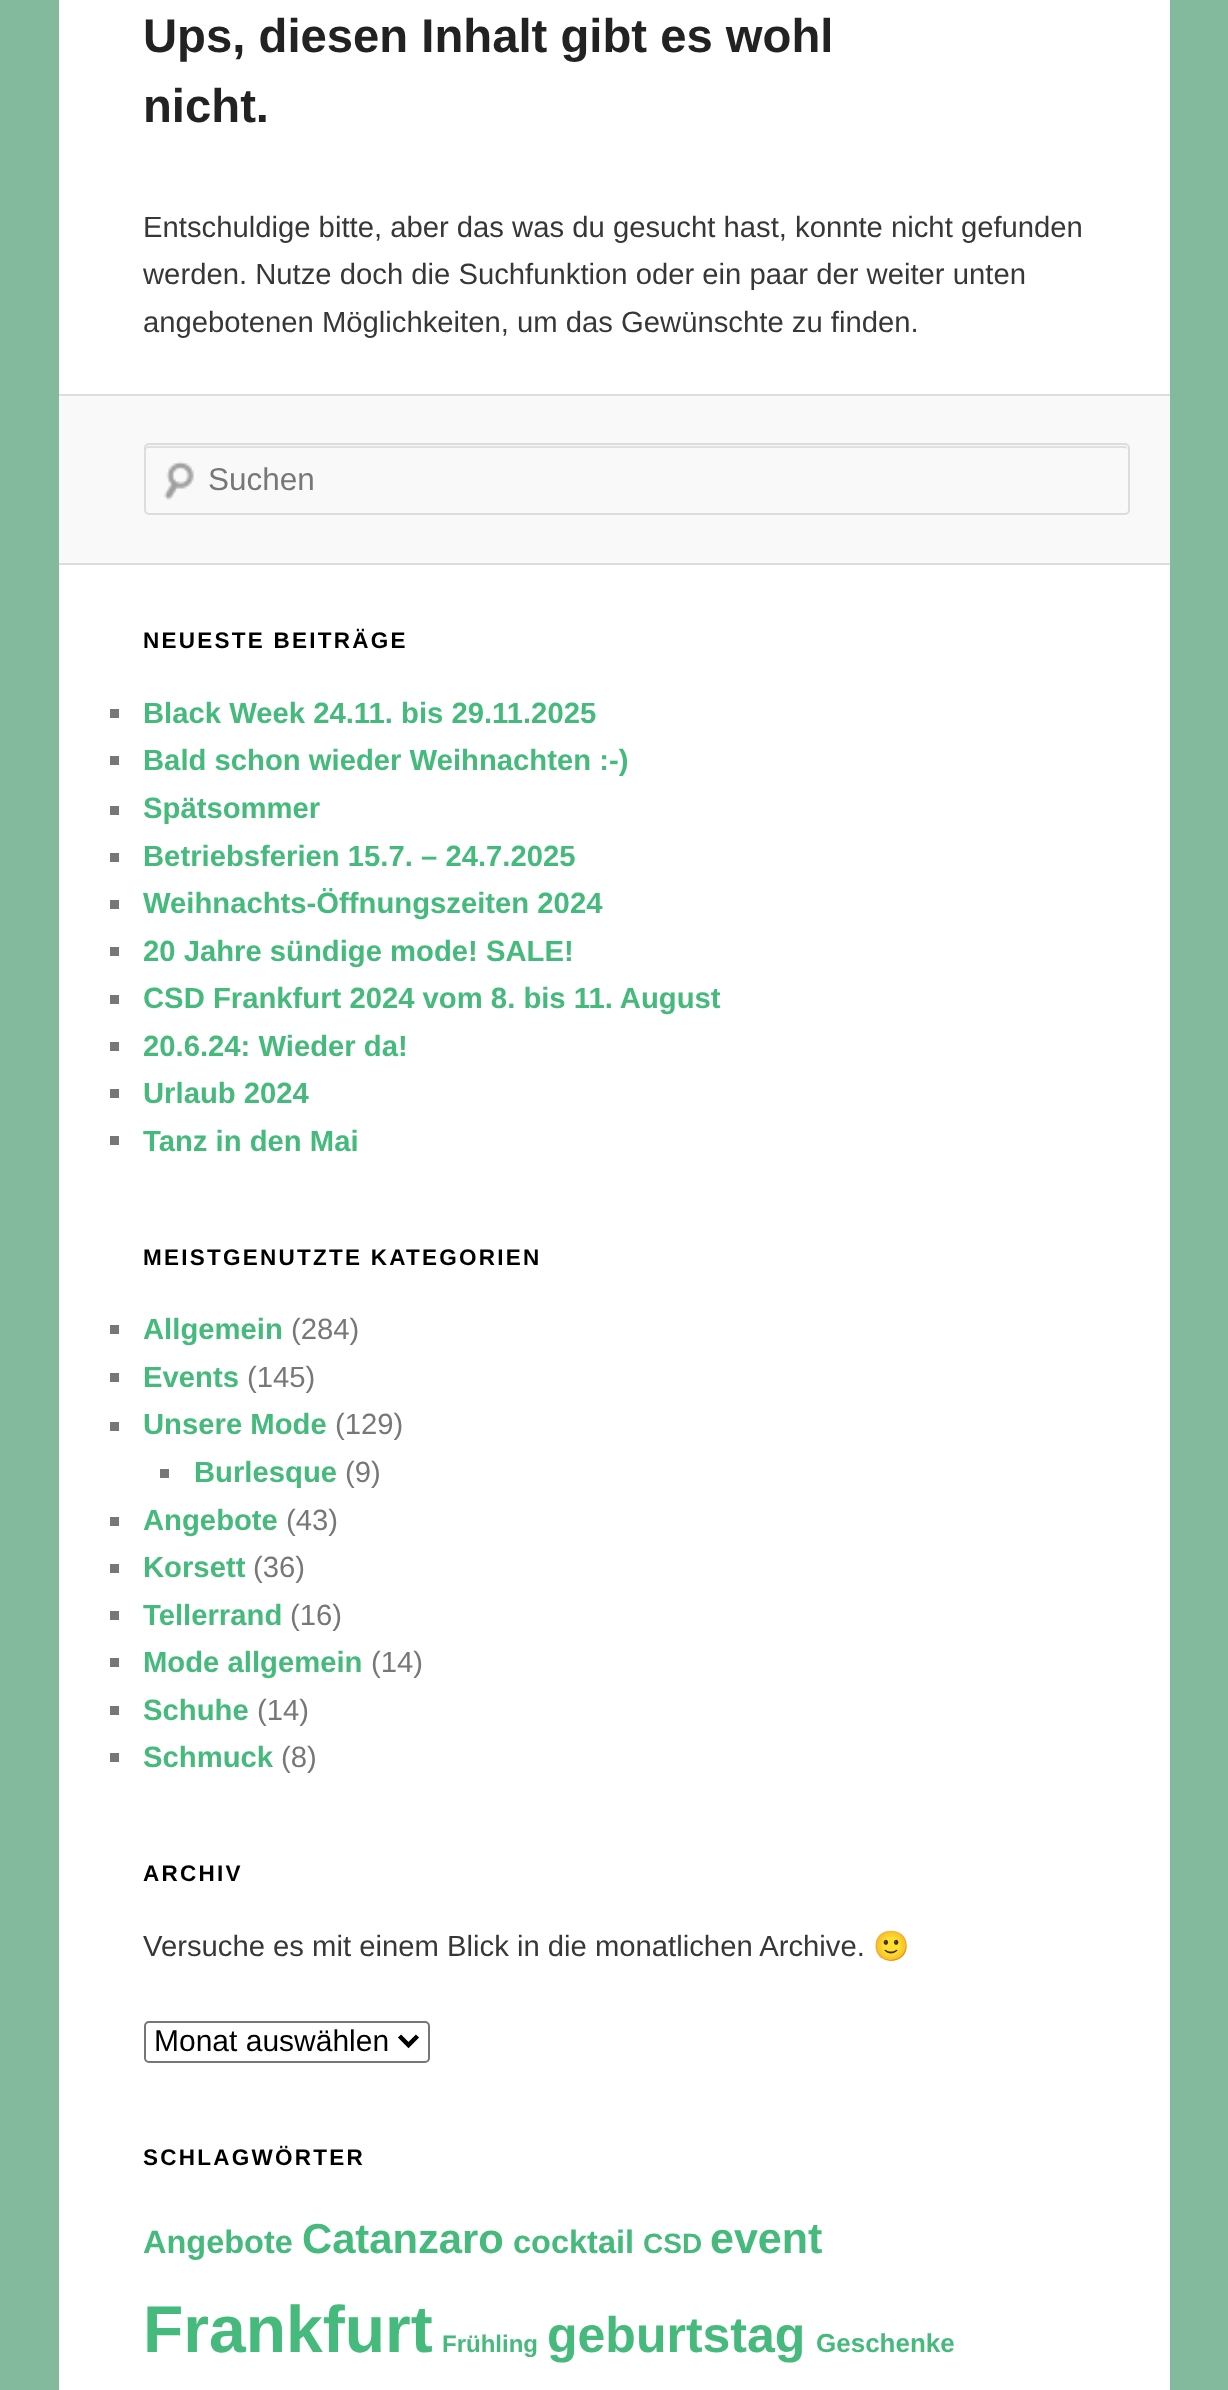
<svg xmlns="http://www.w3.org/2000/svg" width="1228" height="2390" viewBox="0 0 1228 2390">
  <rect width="100%" height="100%" fill="#83b99c"/>
  <path d="M59 0h1111v2390H59z" fill="#fff"/>
  <path d="M59 396h1111v167H59z" fill="#f9f9f9"/>
  <path d="M59 394h1111v2H59z" fill="#ddd"/>
  <path d="M59 563h1111v2H59z" fill="#ddd"/>
  <image x="164" y="461" width="30" height="39" href="img/1.png"/>
  <path d="M148 448H1125C1126 448 1127 449 1127 450V447L1125 446H148C146 446 146 448 146 450C146 449 147 448 148 448Z" fill="#e0e0e0"/>
  <rect x="145" y="444" width="984" height="70" rx="4" fill="none" stroke="#ddd" stroke-width="2"/>
  <path d="M110 709h9v9H110z" fill="#777"/>
  <path d="M110 756h9v9H110z" fill="#777"/>
  <path d="M110 806h9v9H110z" fill="#777"/>
  <path d="M110 853h9v9H110z" fill="#777"/>
  <path d="M110 900h9v9H110z" fill="#777"/>
  <path d="M110 947h9v9H110z" fill="#777"/>
  <path d="M110 995h9v9H110z" fill="#777"/>
  <path d="M110 1042h9v9H110z" fill="#777"/>
  <path d="M110 1089h9v9H110z" fill="#777"/>
  <path d="M110 1136h9v9H110z" fill="#777"/>
  <path d="M110 1325h9v9H110z" fill="#777"/>
  <path d="M110 1373h9v9H110z" fill="#777"/>
  <path d="M110 1422h9v9H110z" fill="#777"/>
  <path d="M160 1469h9v9H160z" fill="#777"/>
  <path d="M110 1517h9v9H110z" fill="#777"/>
  <path d="M110 1564h9v9H110z" fill="#777"/>
  <path d="M110 1611h9v9H110z" fill="#777"/>
  <path d="M110 1658h9v9H110z" fill="#777"/>
  <path d="M110 1706h9v9H110z" fill="#777"/>
  <path d="M110 1753h9v9H110z" fill="#777"/>
  <rect x="145" y="2022" width="284" height="40" rx="4" fill="none" stroke="#767676" stroke-width="2"/>
  <path d="M399.5 2036L408.5 2045L417.5 2036" fill="none" stroke="#000" stroke-width="4.5"/>
  <g font-family="Liberation Sans" font-size="47.25" font-weight="bold" fill="#222">
    <text x="143" y="52">Ups, diesen Inhalt gibt es wohl</text>
    <text x="143" y="122">nicht.</text>
  </g>
  <g font-family="Liberation Sans" font-size="29.25" fill="#373737">
    <text x="143" y="237">Entschuldige bitte, aber das was du gesucht hast, konnte nicht gefunden</text>
    <text x="143" y="284">werden. Nutze doch die Suchfunktion oder ein paar der weiter unten</text>
    <text x="143" y="332">angebotenen Möglichkeiten, um das Gewünschte zu finden.</text>
  </g>
  <text x="208" y="490" font-family="Liberation Sans" font-size="31.5" fill="#777">Suchen</text>
  <text x="143" y="648" font-family="Liberation Sans" font-size="22.5" font-weight="bold" letter-spacing="2.25" fill="#000">NEUESTE BEITRÄGE</text>
  <g font-family="Liberation Sans" font-size="29.25" font-weight="bold" fill="#46ba7c">
    <text x="143" y="723">Black Week 24.11. bis 29.11.2025</text>
    <text x="143" y="770">Bald schon wieder Weihnachten :-)</text>
    <text x="143" y="818">Spätsommer</text>
    <text x="143" y="866">Betriebsferien 15.7. – 24.7.2025</text>
    <text x="143" y="913">Weihnachts-Öffnungszeiten 2024</text>
    <text x="143" y="961">20 Jahre sündige mode! SALE!</text>
    <text x="143" y="1008">CSD Frankfurt 2024 vom 8. bis 11. August</text>
    <text x="143" y="1056">20.6.24: Wieder da!</text>
    <text x="143" y="1103">Urlaub 2024</text>
    <text x="143" y="1151">Tanz in den Mai</text>
  </g>
  <text x="143" y="1265" font-family="Liberation Sans" font-size="22.5" font-weight="bold" letter-spacing="2.25" fill="#000">MEISTGENUTZTE KATEGORIEN</text>
  <text x="143" y="1339" font-family="Liberation Sans" font-size="29.25" font-weight="bold" fill="#46ba7c">Allgemein</text>
  <text x="291" y="1339" font-family="Liberation Sans" font-size="29.25" fill="#777">(284)</text>
  <text x="143" y="1387" font-family="Liberation Sans" font-size="29.25" font-weight="bold" fill="#46ba7c">Events</text>
  <text x="247" y="1387" font-family="Liberation Sans" font-size="29.25" fill="#777">(145)</text>
  <text x="143" y="1434" font-family="Liberation Sans" font-size="29.25" font-weight="bold" fill="#46ba7c">Unsere Mode</text>
  <text x="335" y="1434" font-family="Liberation Sans" font-size="29.25" fill="#777">(129)</text>
  <text x="194" y="1482" font-family="Liberation Sans" font-size="29.25" font-weight="bold" fill="#46ba7c">Burlesque</text>
  <text x="345" y="1482" font-family="Liberation Sans" font-size="29.25" fill="#777">(9)</text>
  <text x="143" y="1530" font-family="Liberation Sans" font-size="29.25" font-weight="bold" fill="#46ba7c">Angebote</text>
  <text x="286" y="1530" font-family="Liberation Sans" font-size="29.25" fill="#777">(43)</text>
  <text x="143" y="1577" font-family="Liberation Sans" font-size="29.25" font-weight="bold" fill="#46ba7c">Korsett</text>
  <text x="253" y="1577" font-family="Liberation Sans" font-size="29.25" fill="#777">(36)</text>
  <text x="143" y="1625" font-family="Liberation Sans" font-size="29.25" font-weight="bold" fill="#46ba7c">Tellerrand</text>
  <text x="290" y="1625" font-family="Liberation Sans" font-size="29.25" fill="#777">(16)</text>
  <text x="143" y="1672" font-family="Liberation Sans" font-size="29.25" font-weight="bold" fill="#46ba7c">Mode allgemein</text>
  <text x="371" y="1672" font-family="Liberation Sans" font-size="29.25" fill="#777">(14)</text>
  <text x="143" y="1720" font-family="Liberation Sans" font-size="29.25" font-weight="bold" fill="#46ba7c">Schuhe</text>
  <text x="257" y="1720" font-family="Liberation Sans" font-size="29.25" fill="#777">(14)</text>
  <text x="143" y="1767" font-family="Liberation Sans" font-size="29.25" font-weight="bold" fill="#46ba7c">Schmuck</text>
  <text x="281" y="1767" font-family="Liberation Sans" font-size="29.25" fill="#777">(8)</text>
  <text x="143" y="1881" font-family="Liberation Sans" font-size="22.5" font-weight="bold" letter-spacing="2.25" fill="#000">ARCHIV</text>
  <text x="143" y="1956" font-family="Liberation Sans" font-size="29.25" fill="#373737">Versuche es mit einem Blick in die monatlichen Archive.</text>
  <text x="873" y="1956" font-family="Noto Color Emoji" font-size="29.25" fill="#373737">🙂</text>
  <text x="154" y="2051" font-family="Liberation Sans" font-size="30" fill="#000">Monat auswählen</text>
  <text x="143" y="2165" font-family="Liberation Sans" font-size="22.5" font-weight="bold" letter-spacing="2.25" fill="#000">SCHLAGWÖRTER</text>
  <text x="143" y="2253" font-family="Liberation Sans" font-size="32.5" font-weight="bold" fill="#46ba7c">Angebote</text>
  <text x="302" y="2253" font-family="Liberation Sans" font-size="41.75" font-weight="bold" fill="#46ba7c">Catanzaro</text>
  <text x="513" y="2253" font-family="Liberation Sans" font-size="32.5" font-weight="bold" fill="#46ba7c">cocktail</text>
  <text x="643" y="2253" font-family="Liberation Sans" font-size="28" font-weight="bold" fill="#46ba7c">CSD</text>
  <text x="710" y="2253" font-family="Liberation Sans" font-size="43" font-weight="bold" fill="#46ba7c">event</text>
  <text x="143" y="2352" font-family="Liberation Sans" font-size="66" font-weight="bold" fill="#46ba7c">Frankfurt</text>
  <text x="442" y="2352" font-family="Liberation Sans" font-size="24" font-weight="bold" fill="#46ba7c">Frühling</text>
  <text x="547" y="2352" font-family="Liberation Sans" font-size="50" font-weight="bold" fill="#46ba7c">geburtstag</text>
  <text x="816" y="2352" font-family="Liberation Sans" font-size="26" font-weight="bold" fill="#46ba7c">Geschenke</text>
</svg>
